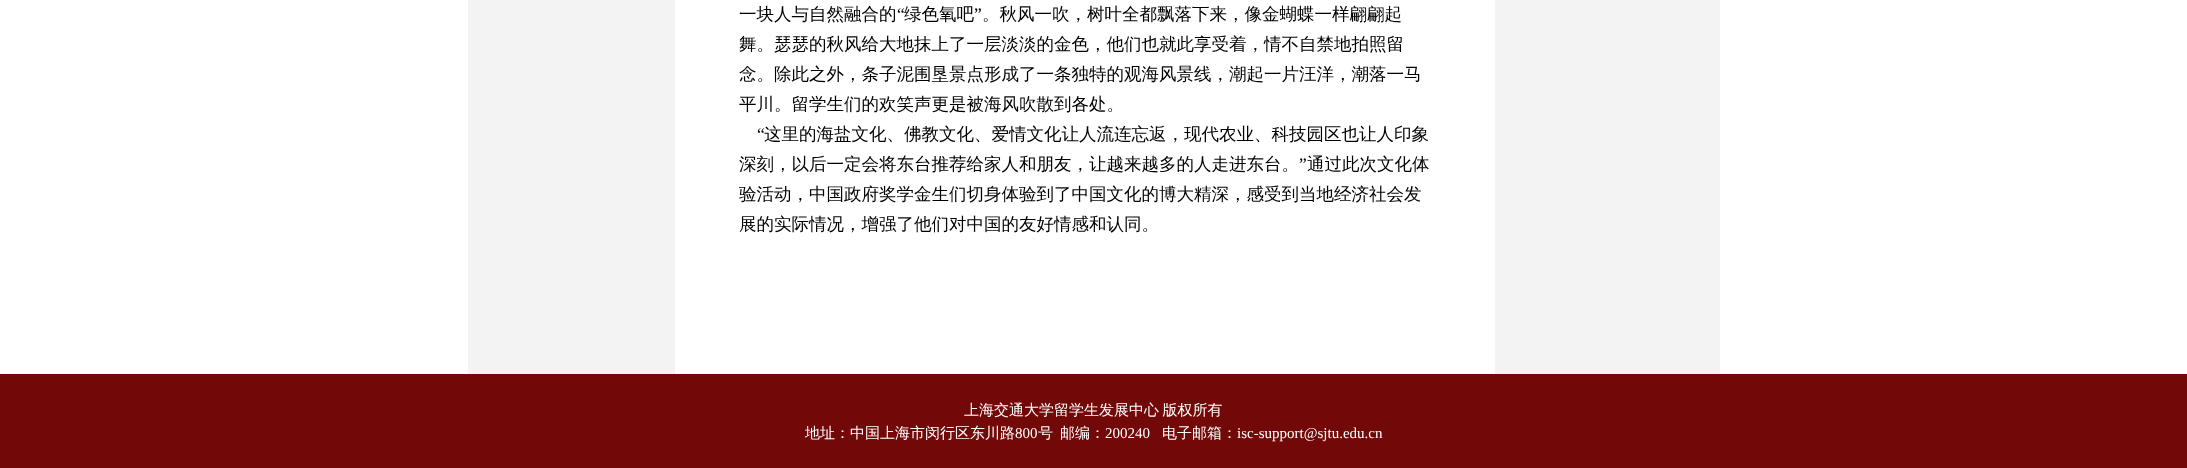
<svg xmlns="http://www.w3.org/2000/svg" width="2187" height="468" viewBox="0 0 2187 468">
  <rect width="100%" height="100%" fill="#fff"/>
  <path d="M468 0h207v374H468z" fill="#f3f3f3"/>
  <path d="M1495 0h225v374H1495z" fill="#f3f3f3"/>
  <path d="M0 374h2187v94H0z" fill="#720808"/>
  <text x="739" y="20" font-family="WenQuanYi Zen Hei" font-size="17.5" font-weight="500" fill="#000">一块人与自然融合的</text>
  <text x="897" y="20" font-family="Liberation Serif" font-size="17.5" fill="#000">“</text>
  <text x="904" y="20" font-family="WenQuanYi Zen Hei" font-size="17.5" font-weight="500" fill="#000">绿色氧吧</text>
  <text x="974" y="20" font-family="Liberation Serif" font-size="17.5" fill="#000">”</text>
  <g font-family="WenQuanYi Zen Hei" font-size="17.5" font-weight="500" fill="#000">
    <text x="982" y="20">。秋风一吹，树叶全都飘落下来，像金蝴蝶一样翩翩起</text>
    <text x="739" y="50">舞。瑟瑟的秋风给大地抹上了一层淡淡的金色，他们也就此享受着，情不自禁地拍照留</text>
    <text x="739" y="80">念。除此之外，条子泥围垦景点形成了一条独特的观海风景线，潮起一片汪洋，潮落一马</text>
    <text x="739" y="110">平川。留学生们的欢笑声更是被海风吹散到各处。</text>
  </g>
  <text x="757" y="140" font-family="Liberation Serif" font-size="17.5" fill="#000">“</text>
  <g font-family="WenQuanYi Zen Hei" font-size="17.5" font-weight="500" fill="#000">
    <text x="764" y="140">这里的海盐文化、佛教文化、爱情文化让人流连忘返，现代农业、科技园区也让人印象</text>
    <text x="739" y="170">深刻，以后一定会将东台推荐给家人和朋友，让越来越多的人走进东台。</text>
  </g>
  <text x="1299" y="170" font-family="Liberation Serif" font-size="17.5" fill="#000">”</text>
  <g font-family="WenQuanYi Zen Hei" font-size="17.5" font-weight="500" fill="#000">
    <text x="1307" y="170">通过此次文化体</text>
    <text x="739" y="200">验活动，中国政府奖学金生们切身体验到了中国文化的博大精深，感受到当地经济社会发</text>
    <text x="739" y="230">展的实际情况，增强了他们对中国的友好情感和认同。</text>
  </g>
  <g font-family="WenQuanYi Zen Hei" font-size="15" font-weight="500" fill="#fff">
    <text x="964" y="415" word-spacing="-1">上海交通大学留学生发展中心 版权所有</text>
    <text x="805" y="438">地址：中国上海市闵行区东川路</text>
  </g>
  <text x="1015" y="438" font-family="Liberation Serif" font-size="15" fill="#fff">800</text>
  <g font-family="WenQuanYi Zen Hei" font-size="15" font-weight="500" fill="#fff">
    <text x="1038" y="438">号</text>
    <text x="1060" y="438">邮编：</text>
  </g>
  <text x="1105" y="438" font-family="Liberation Serif" font-size="15" fill="#fff">200240</text>
  <text x="1162" y="438" font-family="WenQuanYi Zen Hei" font-size="15" font-weight="500" fill="#fff">电子邮箱：</text>
  <text x="1237" y="438" font-family="Liberation Serif" font-size="15" fill="#fff">isc-support@sjtu.edu.cn</text>
</svg>
